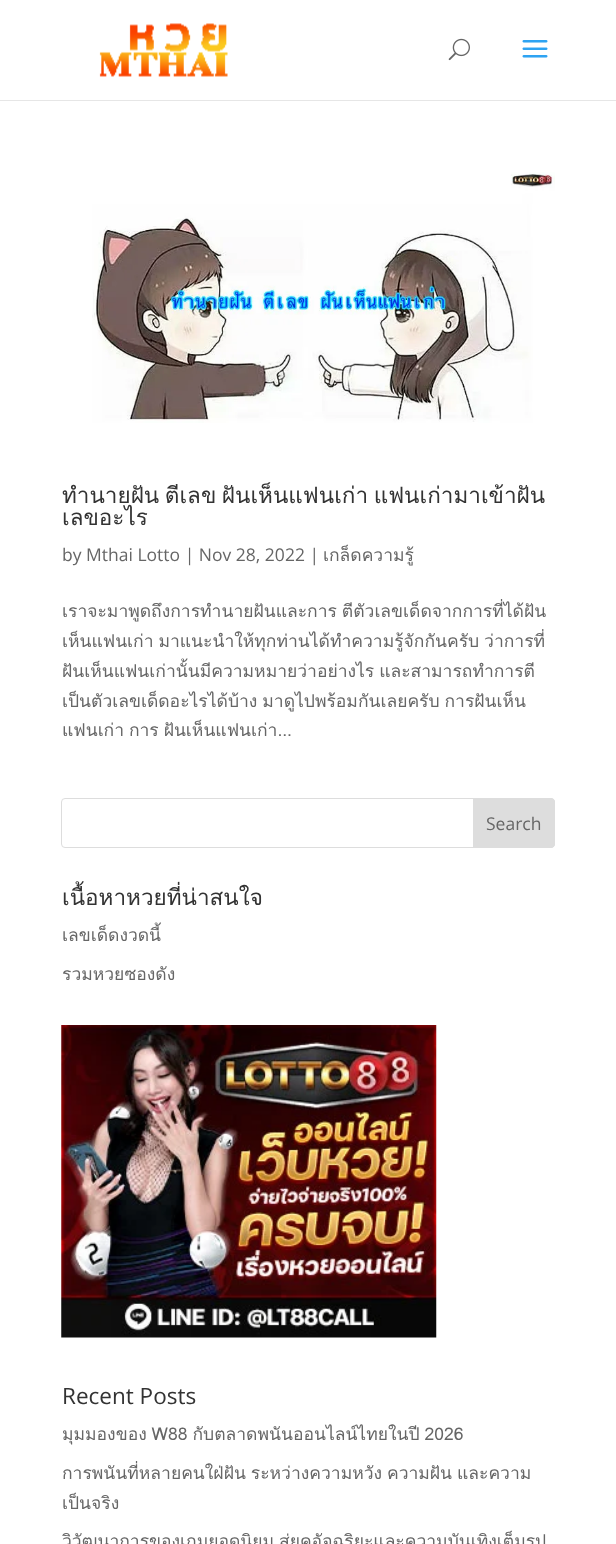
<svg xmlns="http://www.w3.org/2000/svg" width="616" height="1544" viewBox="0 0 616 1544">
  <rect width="100%" height="100%" fill="#fff"/>
  <path d="M0 100h616v1H0z" fill="#e6e6e6"/>
  <image x="99" y="23" width="129" height="54" href="img/1.png"/>
  <image x="448" y="38" width="22" height="23" href="img/2.png"/>
  <image x="522" y="40" width="26" height="18" href="img/3.png"/>
  <image x="92" y="172" width="463" height="251" href="img/4.png"/>
  <rect x="61.5" y="798.5" width="493" height="49" rx="3.5" fill="none" stroke="#ddd"/>
  <path d="M473.5 798.5H551C553 798.5 554.5 800 554.5 802V844C554.5 846 553 847.5 551 847.5H473.5Z" fill="#ddd" stroke="#ddd"/>
  <image x="61" y="1025" width="376" height="313" href="img/5.png"/>
  <g font-family="Loma" font-size="22.5" fill="#333">
    <text x="62" y="503" word-spacing="-2">ทำนายฝัน ตีเลข ฝันเห็นแฟนเก่า แฟนเก่ามาเข้าฝัน</text>
    <text x="62" y="525">เลขอะไร</text>
  </g>
  <text x="62" y="561" font-family="Open Sans" font-size="17.5" fill="#666">by Mthai Lotto | Nov 28, 2022 |</text>
  <g font-family="Loma" font-size="17.5" fill="#666">
    <text x="323" y="561">เกล็ดความรู้</text>
    <text x="62" y="617" word-spacing="-1">เราจะมาพูดถึงการทำนายฝันและการ ตีตัวเลขเด็ดจากการที่ได้ฝัน</text>
    <text x="62" y="647" word-spacing="-1">เห็นแฟนเก่า มาแนะนำให้ทุกท่านได้ทำความรู้จักกันครับ ว่าการที่</text>
    <text x="62" y="677" word-spacing="-1">ฝันเห็นแฟนเก่านั้นมีความหมายว่าอย่างไร และสามารถทำการตี</text>
    <text x="62" y="707" word-spacing="-1">เป็นตัวเลขเด็ดอะไรได้บ้าง มาดูไปพร้อมกันเลยครับ การฝันเห็น</text>
    <text x="62" y="736" word-spacing="-1">แฟนเก่า การ ฝันเห็นแฟนเก่า...</text>
  </g>
  <text x="486" y="830" font-family="Open Sans" font-size="17.5" fill="#666">Search</text>
  <text x="62" y="905" font-family="Loma" font-size="22.5" fill="#333">เนื้อหาหวยที่น่าสนใจ</text>
  <g font-family="Loma" font-size="17.5" fill="#666">
    <text x="62" y="941">เลขเด็ดงวดนี้</text>
    <text x="62" y="980">รวมหวยซองดัง</text>
  </g>
  <text x="62" y="1404" font-family="Open Sans" font-size="22.5" fill="#333">Recent Posts</text>
  <g font-family="Loma" font-size="17.5" fill="#666">
    <text x="62" y="1440" word-spacing="-1">มุมมองของ W88 กับตลาดพนันออนไลน์ไทยในปี 2026</text>
    <text x="62" y="1479" word-spacing="-1">การพนันที่หลายคนใฝ่ฝัน ระหว่างความหวัง ความฝัน และความ</text>
    <text x="62" y="1509">เป็นจริง</text>
    <text x="62" y="1547" word-spacing="-1">วิวัฒนาการของเกมยอดนิยม สู่ยุคอัจฉริยะและความบันเทิงเต็มรูป</text>
  </g>
</svg>
